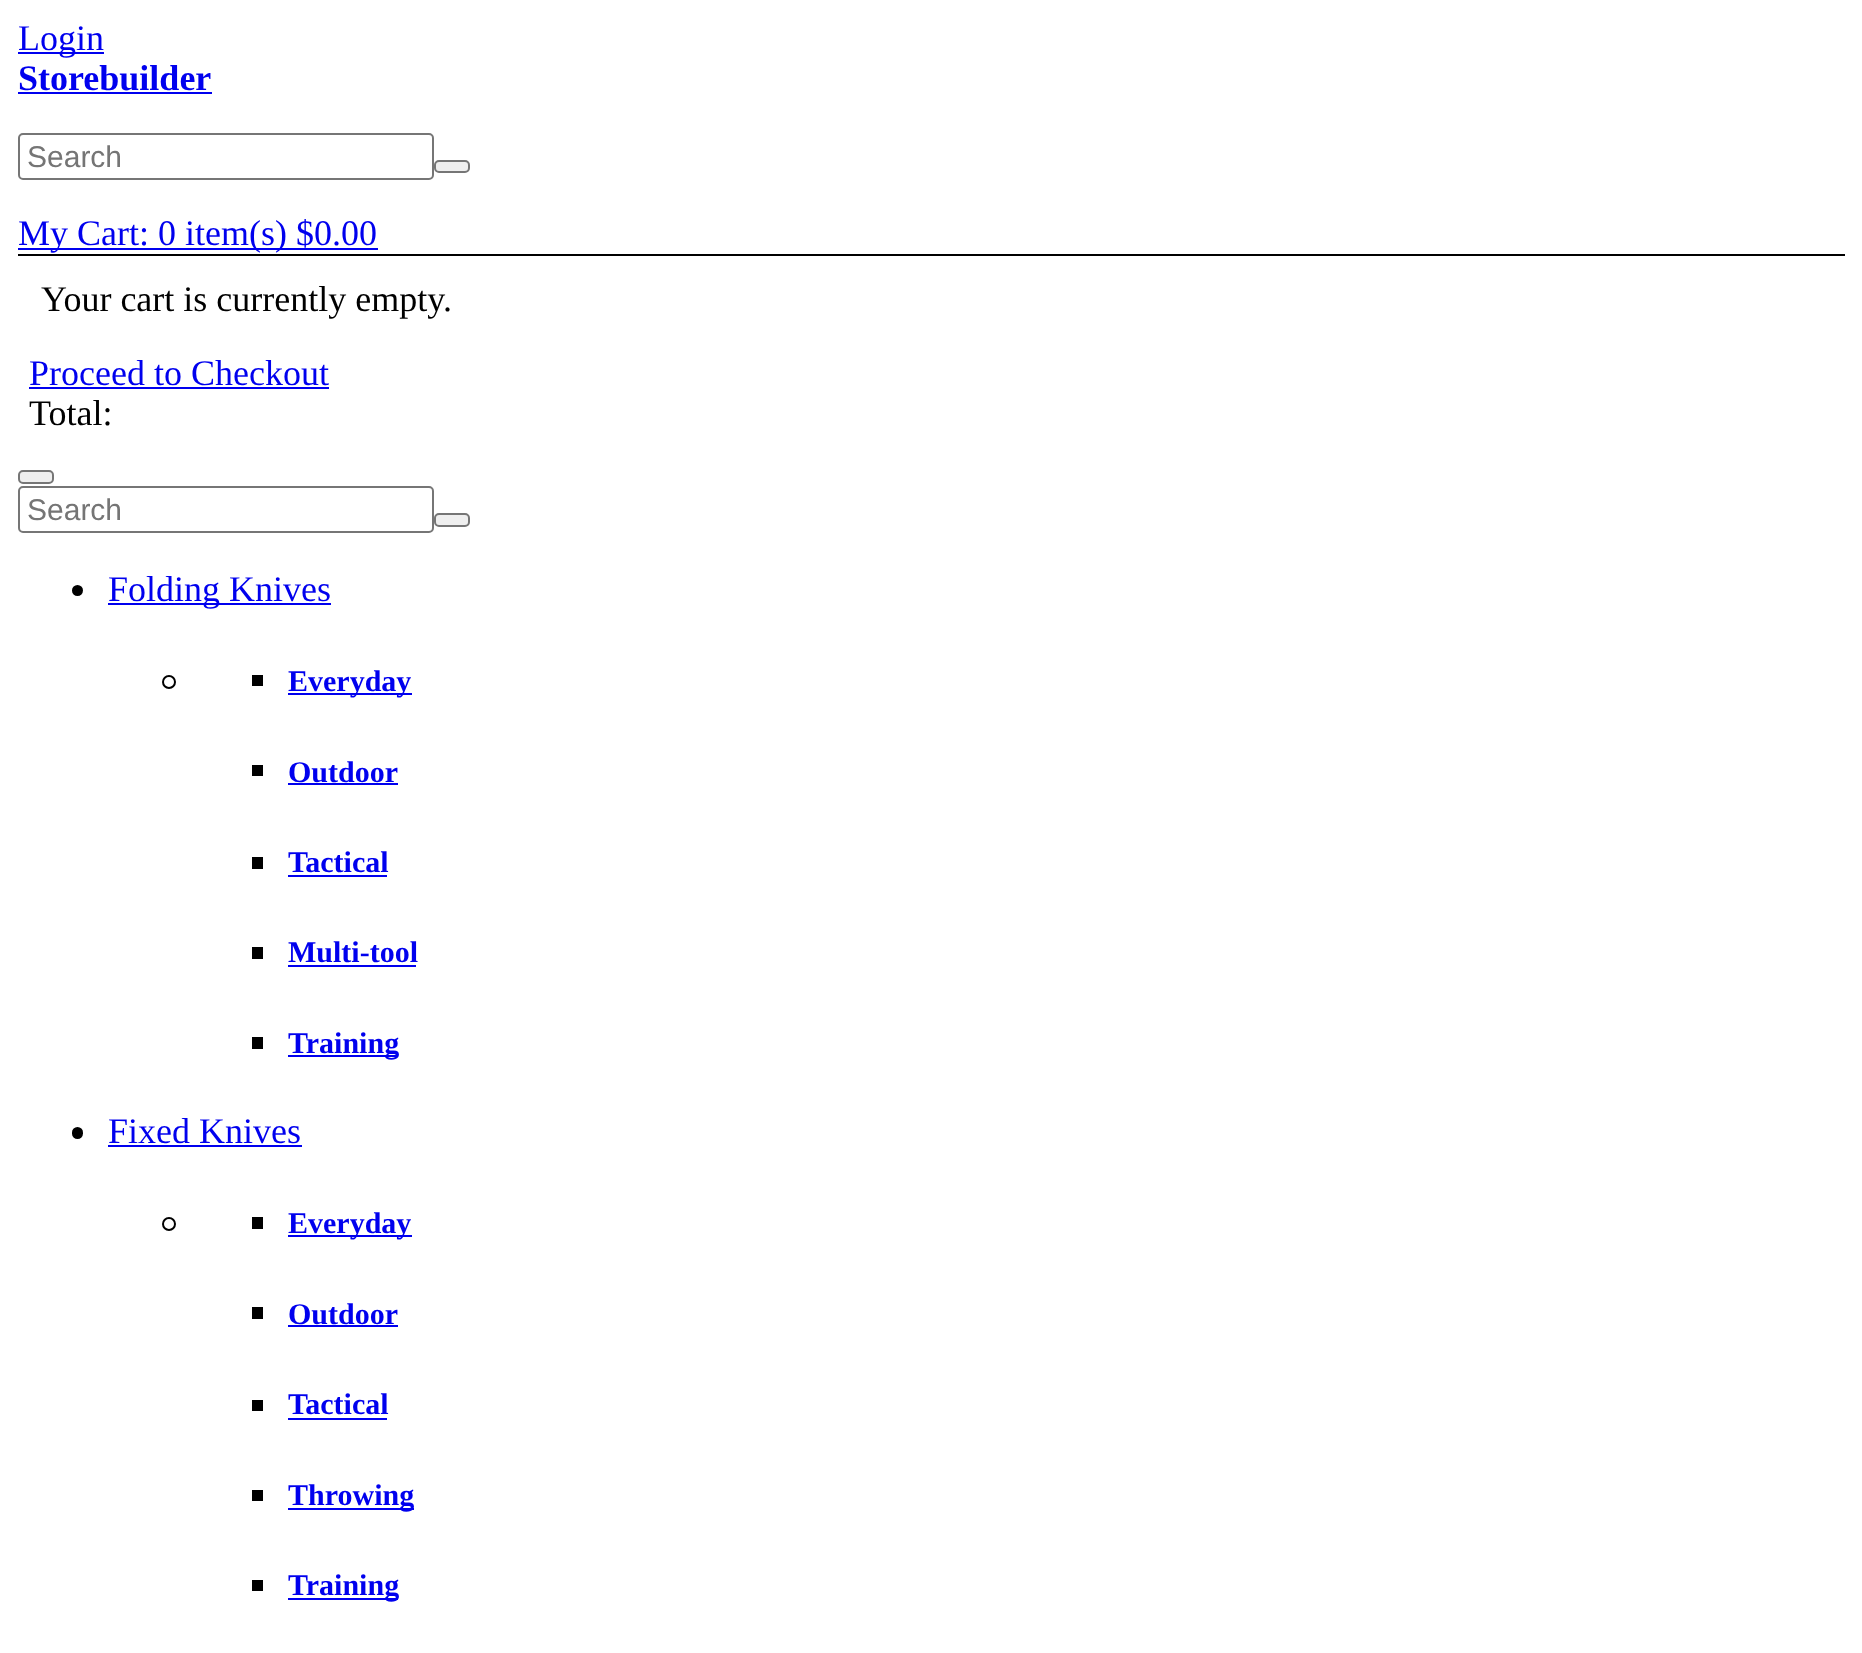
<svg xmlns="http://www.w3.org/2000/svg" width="1862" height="1653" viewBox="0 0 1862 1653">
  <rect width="100%" height="100%" fill="#fff"/>
  <path d="M18 52h86v2H18z" fill="#00e"/>
  <path d="M18 92h194v2H18z" fill="#00e"/>
  <rect x="19" y="134" width="414" height="45" rx="4" fill="none" stroke="#767676" stroke-width="2"/>
  <rect x="435" y="161" width="34" height="11" rx="4" fill="#efefef" stroke="#767676" stroke-width="2"/>
  <path d="M18 248h360v2H18z" fill="#00e"/>
  <path d="M18 254h1827v2H18z" fill="#000"/>
  <path d="M29 387h300v2H29z" fill="#00e"/>
  <rect x="19" y="471" width="34" height="12" rx="4" fill="#efefef" stroke="#767676" stroke-width="2"/>
  <rect x="19" y="487" width="414" height="45" rx="4" fill="none" stroke="#767676" stroke-width="2"/>
  <rect x="435" y="514" width="34" height="12" rx="4" fill="#efefef" stroke="#767676" stroke-width="2"/>
  <circle cx="77.5" cy="590.5" r="5.5" fill="#000"/>
  <path d="M108 603h223v2H108z" fill="#00e"/>
  <circle cx="169" cy="682" r="6" fill="none" stroke="#000" stroke-width="2"/>
  <path d="M252 675h11v11H252z" fill="#000"/>
  <path d="M288 693h124v2H288z" fill="#00e"/>
  <path d="M252 765h11v11H252z" fill="#000"/>
  <path d="M288 783h110v2H288z" fill="#00e"/>
  <path d="M252 857h11v12H252z" fill="#000"/>
  <path d="M288 875h99v2H288z" fill="#00e"/>
  <path d="M252 947h11v12H252z" fill="#000"/>
  <path d="M288 965h128v2H288z" fill="#00e"/>
  <path d="M252 1037h11v12H252z" fill="#000"/>
  <path d="M288 1055h110v2H288z" fill="#00e"/>
  <rect x="72" y="1127" width="11" height="12" rx="5.5" fill="#000"/>
  <path d="M108 1145h194v2H108z" fill="#00e"/>
  <circle cx="169" cy="1224" r="6" fill="none" stroke="#000" stroke-width="2"/>
  <path d="M252 1217h11v12H252z" fill="#000"/>
  <path d="M288 1235h124v2H288z" fill="#00e"/>
  <path d="M252 1307h11v12H252z" fill="#000"/>
  <path d="M288 1325h110v2H288z" fill="#00e"/>
  <path d="M252 1400h11v11H252z" fill="#000"/>
  <path d="M288 1418h99v2H288z" fill="#00e"/>
  <path d="M252 1490h11v11H252z" fill="#000"/>
  <path d="M288 1508h126v2H288z" fill="#00e"/>
  <path d="M252 1580h11v11H252z" fill="#000"/>
  <path d="M288 1598h110v2H288z" fill="#00e"/>
  <text x="18" y="50" font-family="Liberation Serif" font-size="36" fill="#00e">Login</text>
  <text x="18" y="90" font-family="Liberation Serif" font-size="36" font-weight="bold" fill="#00e">Storebuilder</text>
  <text x="27" y="167" font-family="Liberation Sans" font-size="30" fill="#757575">Search</text>
  <text x="18" y="245" font-family="Liberation Serif" font-size="36" fill="#00e">My Cart: 0 item(s) $0.00</text>
  <text x="41" y="311" font-family="Liberation Serif" font-size="36" fill="#000">Your cart is currently empty.</text>
  <text x="29" y="385" font-family="Liberation Serif" font-size="36" fill="#00e">Proceed to Checkout</text>
  <text x="29" y="425" font-family="Liberation Serif" font-size="36" fill="#000">Total:</text>
  <text x="27" y="520" font-family="Liberation Sans" font-size="30" fill="#757575">Search</text>
  <text x="108" y="601" font-family="Liberation Serif" font-size="36" fill="#00e">Folding Knives</text>
  <g font-family="Liberation Serif" font-size="30" font-weight="bold" fill="#00e">
    <text x="288" y="691">Everyday</text>
    <text x="288" y="782">Outdoor</text>
    <text x="288" y="872">Tactical</text>
    <text x="288" y="962">Multi-tool</text>
    <text x="288" y="1053">Training</text>
  </g>
  <text x="108" y="1143" font-family="Liberation Serif" font-size="36" fill="#00e">Fixed Knives</text>
  <g font-family="Liberation Serif" font-size="30" font-weight="bold" fill="#00e">
    <text x="288" y="1233">Everyday</text>
    <text x="288" y="1324">Outdoor</text>
    <text x="288" y="1414">Tactical</text>
    <text x="288" y="1505">Throwing</text>
    <text x="288" y="1595">Training</text>
  </g>
</svg>
